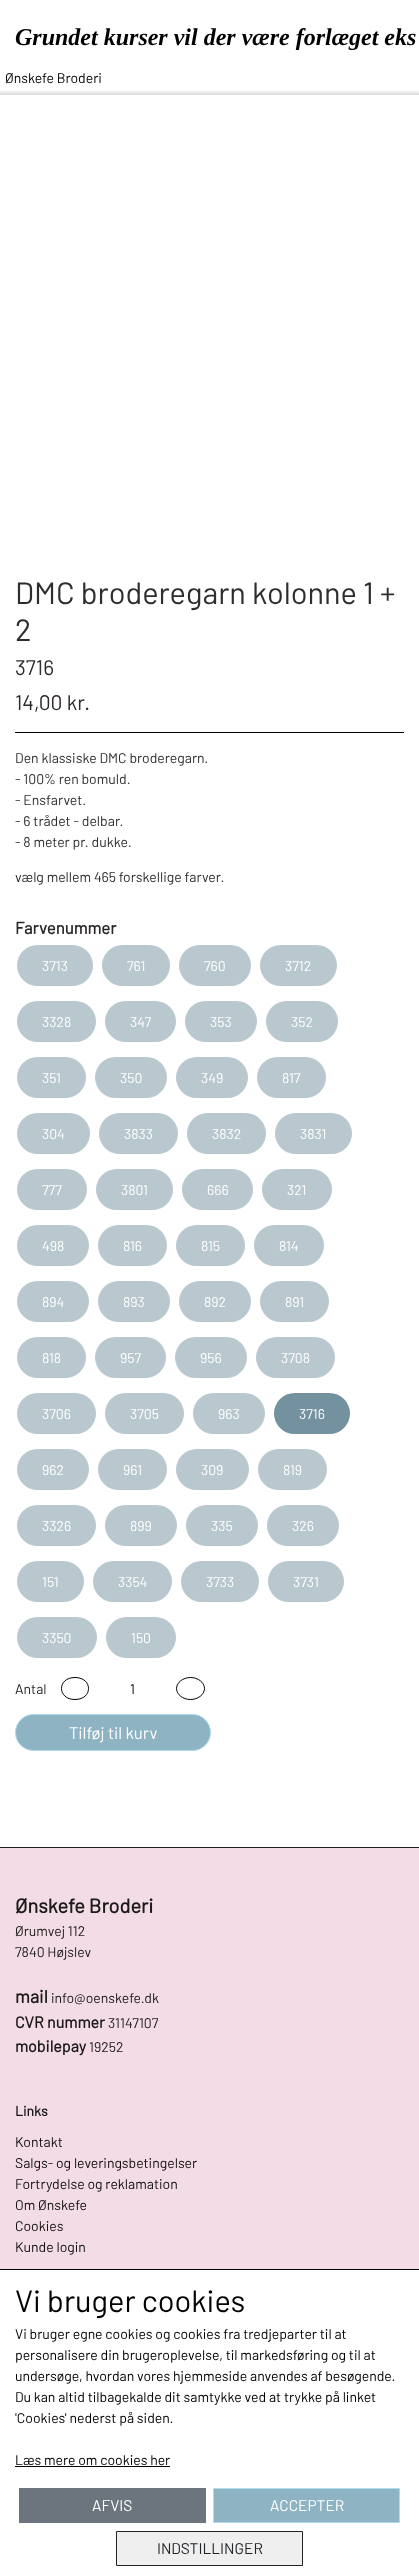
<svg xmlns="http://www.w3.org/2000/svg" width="419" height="2573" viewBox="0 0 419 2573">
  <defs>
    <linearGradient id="g1" gradientUnits="userSpaceOnUse" x1="210" y1="95" x2="210" y2="90"><stop offset="0" stop-color="#d9d9d9"/><stop offset="1" stop-color="#fff"/></linearGradient>
  </defs>
  <rect width="100%" height="100%" fill="#f3dce6"/>
  <path d="M0 0h419v90H0z" fill="#fff"/>
  <path d="M0 90h419v5H0z" fill="url(#g1)"/>
  <path d="M0 95h419v1752H0z" fill="#fff"/>
  <path d="M15 732h389v1H15z" fill="#000"/>
  <rect x="17" y="945" width="76" height="41" rx="20.5" fill="#b9c8cf"/>
  <rect x="102" y="945" width="68" height="41" rx="20.5" fill="#b9c8cf"/>
  <rect x="179" y="945" width="72" height="41" rx="20.5" fill="#b9c8cf"/>
  <rect x="260" y="945" width="77" height="41" rx="20.5" fill="#b9c8cf"/>
  <rect x="17" y="1001" width="79" height="41" rx="20.5" fill="#b9c8cf"/>
  <rect x="105" y="1001" width="71" height="41" rx="20.5" fill="#b9c8cf"/>
  <rect x="185" y="1001" width="72" height="41" rx="20.5" fill="#b9c8cf"/>
  <rect x="266" y="1001" width="72" height="41" rx="20.5" fill="#b9c8cf"/>
  <rect x="17" y="1057" width="69" height="41" rx="20.5" fill="#b9c8cf"/>
  <rect x="95" y="1057" width="72" height="41" rx="20.5" fill="#b9c8cf"/>
  <rect x="176" y="1057" width="72" height="41" rx="20.5" fill="#b9c8cf"/>
  <rect x="257" y="1057" width="69" height="41" rx="20.5" fill="#b9c8cf"/>
  <rect x="17" y="1113" width="73" height="41" rx="20.5" fill="#b9c8cf"/>
  <rect x="99" y="1113" width="79" height="41" rx="20.5" fill="#b9c8cf"/>
  <rect x="187" y="1113" width="79" height="41" rx="20.5" fill="#b9c8cf"/>
  <rect x="275" y="1113" width="77" height="41" rx="20.5" fill="#b9c8cf"/>
  <rect x="17" y="1169" width="70" height="41" rx="20.5" fill="#b9c8cf"/>
  <rect x="96" y="1169" width="77" height="41" rx="20.5" fill="#b9c8cf"/>
  <rect x="182" y="1169" width="71" height="41" rx="20.5" fill="#b9c8cf"/>
  <rect x="262" y="1169" width="70" height="41" rx="20.5" fill="#b9c8cf"/>
  <rect x="17" y="1225" width="72" height="41" rx="20.5" fill="#b9c8cf"/>
  <rect x="98" y="1225" width="69" height="41" rx="20.5" fill="#b9c8cf"/>
  <rect x="176" y="1225" width="69" height="41" rx="20.5" fill="#b9c8cf"/>
  <rect x="254" y="1225" width="70" height="41" rx="20.5" fill="#b9c8cf"/>
  <rect x="17" y="1281" width="72" height="41" rx="20.5" fill="#b9c8cf"/>
  <rect x="98" y="1281" width="72" height="41" rx="20.5" fill="#b9c8cf"/>
  <rect x="179" y="1281" width="72" height="41" rx="20.5" fill="#b9c8cf"/>
  <rect x="260" y="1281" width="69" height="41" rx="20.5" fill="#b9c8cf"/>
  <rect x="17" y="1337" width="69" height="41" rx="20.5" fill="#b9c8cf"/>
  <rect x="95" y="1337" width="71" height="41" rx="20.5" fill="#b9c8cf"/>
  <rect x="175" y="1337" width="72" height="41" rx="20.5" fill="#b9c8cf"/>
  <rect x="256" y="1337" width="79" height="41" rx="20.5" fill="#b9c8cf"/>
  <rect x="17" y="1393" width="79" height="41" rx="20.5" fill="#b9c8cf"/>
  <rect x="105" y="1393" width="79" height="41" rx="20.5" fill="#b9c8cf"/>
  <rect x="193" y="1393" width="72" height="41" rx="20.5" fill="#b9c8cf"/>
  <rect x="274" y="1393" width="76" height="41" rx="20.5" fill="#73919e"/>
  <rect x="17" y="1449" width="72" height="41" rx="20.5" fill="#b9c8cf"/>
  <rect x="98" y="1449" width="69" height="41" rx="20.5" fill="#b9c8cf"/>
  <rect x="176" y="1449" width="73" height="41" rx="20.5" fill="#b9c8cf"/>
  <rect x="258" y="1449" width="69" height="41" rx="20.5" fill="#b9c8cf"/>
  <rect x="17" y="1505" width="79" height="41" rx="20.5" fill="#b9c8cf"/>
  <rect x="105" y="1505" width="72" height="41" rx="20.5" fill="#b9c8cf"/>
  <rect x="186" y="1505" width="72" height="41" rx="20.5" fill="#b9c8cf"/>
  <rect x="267" y="1505" width="72" height="41" rx="20.5" fill="#b9c8cf"/>
  <rect x="17" y="1561" width="67" height="41" rx="20.5" fill="#b9c8cf"/>
  <rect x="93" y="1561" width="79" height="41" rx="20.5" fill="#b9c8cf"/>
  <rect x="181" y="1561" width="78" height="41" rx="20.5" fill="#b9c8cf"/>
  <rect x="268" y="1561" width="76" height="41" rx="20.5" fill="#b9c8cf"/>
  <rect x="17" y="1617" width="80" height="41" rx="20.5" fill="#b9c8cf"/>
  <rect x="106" y="1617" width="70" height="41" rx="20.5" fill="#b9c8cf"/>
  <path d="M75 1677.5C93 1677.5 93 1699.5 75 1699.5C57 1699.5 57 1677.5 75 1677.5Z" fill="none" stroke="#000"/>
  <path d="M190.5 1677.5C198 1677.5 204.5 1682.5 204.5 1688.5C204.5 1694.5 198 1699.5 190.5 1699.5C183 1699.5 176.5 1694.5 176.5 1688.5C176.5 1682.5 183 1677.5 190.5 1677.5Z" fill="none" stroke="#000"/>
  <rect x="15.5" y="1714.5" width="195" height="36" rx="18" fill="#8eb4c4" stroke="#aedcef"/>
  <path d="M0 1847h419v1H0z" fill="#1e1e1e"/>
  <path d="M0 2270h419v303H0z" fill="#fff"/>
  <path d="M0 2269h419v1H0z" fill="#000"/>
  <path d="M15 2466h155v1H15z" fill="#000"/>
  <path d="M19 2488h187v35H19z" fill="#6c757d"/>
  <path d="M213.5 2488.5h186v34H213.5z" fill="#8eb4c4" stroke="#aedcef"/>
  <path d="M116.5 2531.5h186v34H116.5z" fill="#efefef" stroke="#212529"/>
  <text x="15" y="45" font-family="Liberation Serif" font-size="24" font-weight="bold" font-style="italic" fill="#000">Grundet kurser vil der være forlæget eks</text>
  <text x="5" y="83" font-family="Barlow" font-size="14" fill="#000">Ønskefe Broderi</text>
  <g font-family="Barlow" font-size="30.75" fill="#2e2e2e">
    <text x="15" y="604">DMC broderegarn kolonne 1 +</text>
    <text x="15" y="641">2</text>
  </g>
  <text x="15" y="675" font-family="Barlow" font-size="21" fill="#2e2e2e">3716</text>
  <text x="15" y="710" font-family="Barlow" font-size="21" fill="#2d282a">14,00 kr.</text>
  <g font-family="Barlow" font-size="14" fill="#2e2e2e">
    <text x="15" y="763">Den klassiske DMC broderegarn.</text>
    <text x="15" y="784">- 100% ren bomuld.</text>
    <text x="15" y="805">- Ensfarvet.</text>
    <text x="15" y="826">- 6 trådet - delbar.</text>
    <text x="15" y="847">- 8 meter pr. dukke.</text>
    <text x="15" y="882">vælg mellem 465 forskellige farver.</text>
  </g>
  <text x="15" y="934" font-family="Barlow" font-size="16.75" font-weight="bold" fill="#2d282a">Farvenummer</text>
  <g font-family="Barlow" font-size="14" fill="#fff">
    <text x="42" y="971">3713</text>
    <text x="127" y="971">761</text>
    <text x="204" y="971">760</text>
    <text x="285" y="971">3712</text>
    <text x="42" y="1027">3328</text>
    <text x="130" y="1027">347</text>
    <text x="210" y="1027">353</text>
    <text x="291" y="1027">352</text>
    <text x="42" y="1083">351</text>
    <text x="120" y="1083">350</text>
    <text x="201" y="1083">349</text>
    <text x="282" y="1083">817</text>
    <text x="42" y="1139">304</text>
    <text x="124" y="1139">3833</text>
    <text x="212" y="1139">3832</text>
    <text x="300" y="1139">3831</text>
    <text x="42" y="1195">777</text>
    <text x="121" y="1195">3801</text>
    <text x="207" y="1195">666</text>
    <text x="287" y="1195">321</text>
    <text x="42" y="1251">498</text>
    <text x="123" y="1251">816</text>
    <text x="201" y="1251">815</text>
    <text x="279" y="1251">814</text>
    <text x="42" y="1307">894</text>
    <text x="123" y="1307">893</text>
    <text x="204" y="1307">892</text>
    <text x="285" y="1307">891</text>
    <text x="42" y="1363">818</text>
    <text x="120" y="1363">957</text>
    <text x="200" y="1363">956</text>
    <text x="281" y="1363">3708</text>
    <text x="42" y="1419">3706</text>
    <text x="130" y="1419">3705</text>
    <text x="218" y="1419">963</text>
    <text x="299" y="1419">3716</text>
    <text x="42" y="1475">962</text>
    <text x="123" y="1475">961</text>
    <text x="201" y="1475">309</text>
    <text x="283" y="1475">819</text>
    <text x="42" y="1531">3326</text>
    <text x="130" y="1531">899</text>
    <text x="211" y="1531">335</text>
    <text x="292" y="1531">326</text>
    <text x="42" y="1587">151</text>
    <text x="118" y="1587">3354</text>
    <text x="206" y="1587">3733</text>
    <text x="293" y="1587">3731</text>
    <text x="42" y="1643">3350</text>
    <text x="131" y="1643">150</text>
  </g>
  <text x="15" y="1694" font-family="Barlow" font-size="14" fill="#2d282a">Antal</text>
  <text x="130" y="1694" font-family="Barlow" font-size="14" fill="#000">1</text>
  <text x="69" y="1739" font-family="Barlow" font-size="16.75" fill="#fff">Tilføj til kurv</text>
  <text x="15" y="1913" font-family="Barlow" font-size="20" font-weight="bold" fill="#1c1a1a">Ønskefe Broderi</text>
  <g font-family="Barlow" font-size="14" fill="#1c1a1a">
    <text x="15" y="1936">Ørumvej 112</text>
    <text x="15" y="1957">7840 Højslev</text>
  </g>
  <text x="15" y="2003" font-family="Barlow" font-size="18" font-weight="bold" fill="#1c1a1a">mail</text>
  <text x="51" y="2003" font-family="Barlow" font-size="14" fill="#1c1a1a">info@oenskefe.dk</text>
  <text x="15" y="2028" font-family="Barlow" font-size="16" font-weight="bold" fill="#1c1a1a">CVR nummer</text>
  <text x="108" y="2028" font-family="Barlow" font-size="14" fill="#1c1a1a">31147107</text>
  <text x="15" y="2052" font-family="Barlow" font-size="16" font-weight="bold" fill="#1c1a1a">mobilepay</text>
  <text x="89" y="2052" font-family="Barlow" font-size="14" fill="#1c1a1a">19252</text>
  <text x="15" y="2116" font-family="Barlow" font-size="14" font-weight="bold" fill="#1c1a1a">Links</text>
  <g font-family="Barlow" font-size="14" fill="#110f0f">
    <text x="15" y="2147">Kontakt</text>
    <text x="15" y="2168">Salgs- og leveringsbetingelser</text>
    <text x="15" y="2189">Fortrydelse og reklamation</text>
    <text x="15" y="2210">Om Ønskefe</text>
    <text x="15" y="2231">Cookies</text>
    <text x="15" y="2252">Kunde login</text>
  </g>
  <text x="15" y="2312" font-family="Barlow" font-size="30.75" fill="#000">Vi bruger cookies</text>
  <g font-family="Barlow" font-size="14" fill="#000">
    <text x="15" y="2339">Vi bruger egne cookies og cookies fra tredjeparter til at</text>
    <text x="15" y="2360">personalisere din brugeroplevelse, til markedsføring og til at</text>
    <text x="15" y="2381">undersøge, hvordan vores hjemmeside anvendes af besøgende.</text>
    <text x="15" y="2402">Du kan altid tilbagekalde dit samtykke ved at trykke på linket</text>
    <text x="15" y="2423">'Cookies' nederst på siden.</text>
    <text x="15" y="2465">Læs mere om cookies her</text>
  </g>
  <g font-family="Barlow" font-size="15.5" fill="#fff">
    <text x="92" y="2511">AFVIS</text>
    <text x="270" y="2511">ACCEPTER</text>
  </g>
  <text x="157" y="2554" font-family="Barlow" font-size="15.5" fill="#212529">INDSTILLINGER</text>
</svg>
